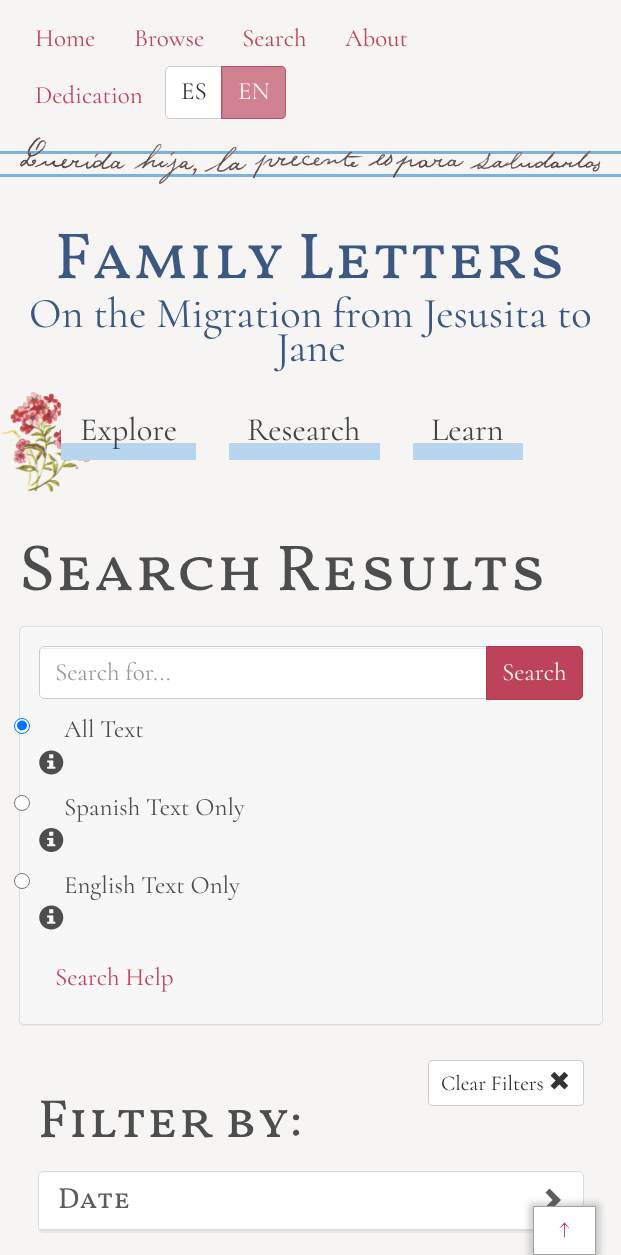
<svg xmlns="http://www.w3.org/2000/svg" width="621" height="1255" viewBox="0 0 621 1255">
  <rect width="100%" height="100%" fill="#f6f5f4"/>
  <path d="M170 66.5H222.5V118.5H170C167.5 118.5 165.5 116.5 165.5 114V71C165.5 68.5 167.5 66.5 170 66.5Z" fill="#fff" stroke="#ccc"/>
  <path d="M221 66H281C284 66 286 68 286 71V114C286 117 284 119 281 119H221Z" fill="#bd435ba6"/>
  <path d="M221.5 66.5H281C283.5 66.5 285.5 68.5 285.5 71V114C285.5 116.5 283.5 118.5 281 118.5H221.5Z" fill="none" stroke="#ab3c52a6"/>
  <path d="M0 151h621v3H0z" fill="#79b1e0"/>
  <path d="M0 174h621v3H0z" fill="#79b1e0"/>
  <image x="20" y="137" width="581" height="47" href="img/1.png"/>
  <image x="1" y="391" width="92" height="110" href="img/2.png"/>
  <path d="M61 403h32v40H61z" fill="#f6f5f4"/>
  <path d="M61 443h135v17H61z" fill="#b7d5ee"/>
  <path d="M229 443h151v17H229z" fill="#b7d5ee"/>
  <path d="M413 443h110v17H413z" fill="#b7d5ee"/>
  <rect x="19" y="628" width="584" height="398" rx="5" fill="#0000000d" filter="blur(0.5px)"/>
  <rect x="19.5" y="626.5" width="583" height="398" rx="4.5" fill="#f8f7f7" stroke="#ddd"/>
  <path d="M44 646H488V699H44C41 699 39 697 39 694V651C39 648 41 646 44 646Z" fill="#fff"/>
  <path d="M44 649H486V648H44C42 648 40 650 40 652C40 650 42 649 44 649Z" fill="#ececec"/>
  <path d="M44 646.5H487.5V698.5H44C41.5 698.5 39.5 696.5 39.5 694V651C39.5 648.5 41.5 646.5 44 646.5Z" fill="none" stroke="#ccc"/>
  <path d="M486.5 646.5H578C580.5 646.5 582.5 648.5 582.5 651V695C582.5 697.5 580.5 699.5 578 699.5H486.5Z" fill="#bd435b" stroke="#ab3c52"/>
  <circle cx="22" cy="726" r="7.5" fill="#fff" stroke="#0075ff"/>
  <circle cx="22" cy="725.5" r="5" fill="#0075ff"/>
  <image x="39" y="750" width="25" height="25" href="img/3.png"/>
  <circle cx="22" cy="803" r="7.5" fill="#fff" stroke="#767676"/>
  <image x="39" y="828" width="25" height="24" href="img/4.png"/>
  <circle cx="22" cy="881" r="7.5" fill="#fff" stroke="#767676"/>
  <image x="39" y="905" width="25" height="25" href="img/3.png"/>
  <rect x="428.5" y="1060.5" width="155" height="45" rx="3.5" fill="#fff" stroke="#ccc"/>
  <image x="550" y="1072" width="18" height="18" href="img/5.png"/>
  <rect x="38" y="1173" width="546" height="60" rx="5" fill="#0000000d" filter="blur(0.5px)"/>
  <rect x="38.5" y="1171.5" width="545" height="59" rx="4.5" fill="#f8f7f7" stroke="#ddd"/>
  <path d="M43 1173H579C581 1173 583 1175 583 1177V1230H39V1177C39 1175 41 1173 43 1173Z" fill="#fff"/>
  <path d="M39 1229h494v1H39z" fill="#ddd"/>
  <path d="M561 1200L549.5 1211.5L545.5 1207L552.5 1200L545.5 1192.5L549.5 1188.5Z" fill="#5c5e5e"/>
  <path d="M529 1203h71v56H529z" fill="#5c5e5e4d" filter="blur(3px)"/>
  <path d="M533.5 1206.5h62v48H533.5z" fill="#fff" stroke="#a0a2a2"/>
  <g font-family="Cormorant" font-size="25" font-weight="300" fill="#bd435b">
    <text x="35" y="46">Home</text>
    <text x="134" y="46">Browse</text>
    <text x="242" y="46">Search</text>
    <text x="345" y="46">About</text>
    <text x="35" y="103">Dedication</text>
  </g>
  <text x="181" y="99" font-family="Cormorant" font-size="25" font-weight="300" fill="#333">ES</text>
  <text x="238" y="99" font-family="Cormorant" font-size="25" font-weight="300" fill="#fcfcfb">EN</text>
  <text x="55" y="278" font-family="Vollkorn SC" font-size="65" fill="#3c5881">Family Letters</text>
  <g font-family="Cormorant" font-size="42.5" font-weight="300" fill="#3c5881">
    <text x="29" y="327">On the Migration from Jesusita to</text>
    <text x="276" y="361">Jane</text>
  </g>
  <g font-family="Cormorant" font-size="32.5" font-weight="300" fill="#434444">
    <text x="80" y="440">Explore</text>
    <text x="247" y="440">Research</text>
    <text x="431" y="440">Learn</text>
  </g>
  <text x="19" y="590" font-family="Vollkorn SC" font-size="65" fill="#4c4d4d">Search Results</text>
  <text x="55" y="680" font-family="Cormorant" font-size="25" font-weight="300" fill="#999">Search for...</text>
  <text x="502" y="680" font-family="Cormorant" font-size="25" font-weight="300" fill="#fcfcfb">Search</text>
  <g font-family="Cormorant" font-size="25" font-weight="300" fill="#4c4d4d">
    <text x="64" y="737">All Text</text>
    <text x="64" y="815">Spanish Text Only</text>
    <text x="64" y="893">English Text Only</text>
  </g>
  <text x="55" y="985" font-family="Cormorant" font-size="25" font-weight="300" fill="#bd435b">Search Help</text>
  <text x="441" y="1090" font-family="Cormorant" font-size="21.25" font-weight="300" fill="#333">Clear Filters</text>
  <text x="38" y="1137" font-family="Vollkorn SC" font-size="53.75" fill="#4c4d4d">Filter by:</text>
  <text x="58" y="1208" font-family="Vollkorn SC" font-size="29" fill="#5c5e5e">Date</text>
  <text x="559" y="1236" font-family="Cormorant" font-size="25" font-weight="300" fill="#bd435b">↑</text>
</svg>
